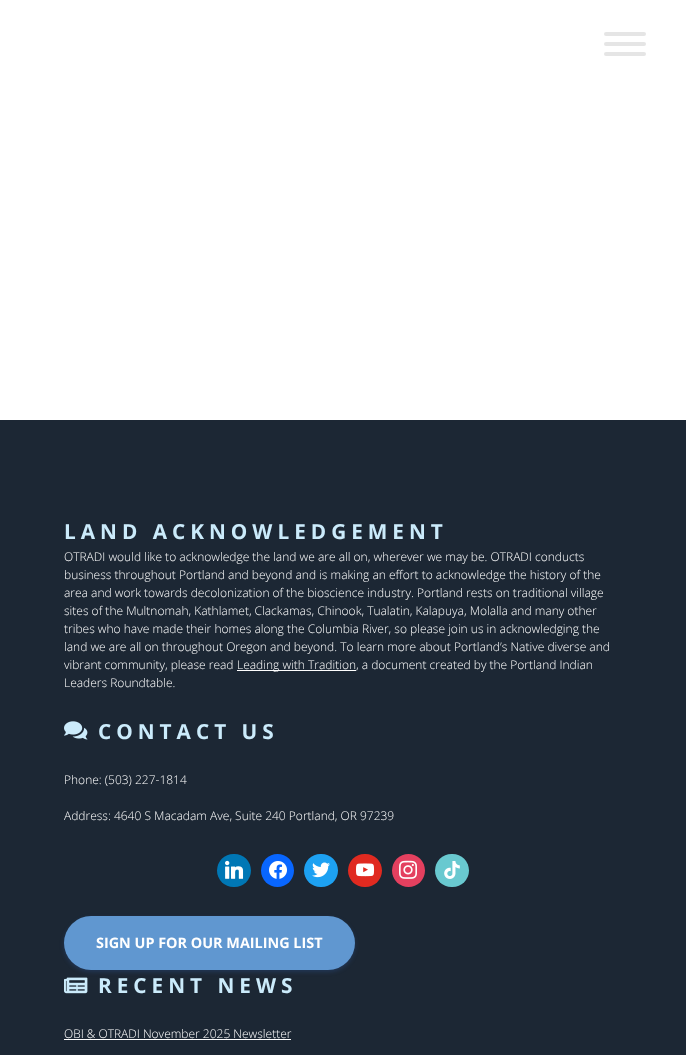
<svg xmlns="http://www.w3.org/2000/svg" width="686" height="1055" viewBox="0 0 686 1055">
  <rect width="100%" height="100%" fill="#fff"/>
  <rect x="604" y="32" width="42" height="4" rx="2" fill="#e5e5e5"/>
  <rect x="604" y="42" width="42" height="4" rx="2" fill="#e5e5e5"/>
  <rect x="604" y="52" width="42" height="4" rx="2" fill="#e5e5e5"/>
  <path d="M0 420h686v635H0z" fill="#1c2734"/>
  <path d="M237 670h119v1H237z" fill="#fff"/>
  <image x="64" y="721" width="24" height="19" href="img/1.png"/>
  <rect x="217" y="854" width="34" height="33" rx="16.5" fill="#0077b5"/>
  <image x="225" y="860" width="19" height="19" href="img/2.png"/>
  <circle cx="277.5" cy="870.5" r="16.5" fill="#0866ff"/>
  <image x="269" y="861" width="18" height="18" href="img/3.png"/>
  <rect x="304" y="854" width="34" height="33" rx="16.5" fill="#1da1f2"/>
  <image x="312" y="862" width="18" height="16" href="img/4.png"/>
  <rect x="348" y="854" width="34" height="33" rx="16.5" fill="#e02a20"/>
  <image x="356" y="863" width="19" height="14" href="img/5.png"/>
  <circle cx="408.5" cy="870.5" r="16.5" fill="#e4405f"/>
  <image x="399" y="860" width="18" height="19" href="img/6.png"/>
  <rect x="435" y="854" width="34" height="33" rx="16.5" fill="#69c9d0"/>
  <image x="444" y="861" width="16" height="18" href="img/7.png"/>
  <rect x="64" y="918" width="291" height="54" rx="27" fill="#2f5caa4a" filter="blur(2px)"/>
  <rect x="64" y="916" width="291" height="54" rx="27" fill="#6097d0"/>
  <image x="64" y="977" width="24" height="17" href="img/8.png"/>
  <path d="M64 1039h227v1H64z" fill="#fff"/>
  <text x="64" y="539" font-family="Open Sans" font-size="20.75" font-weight="bold" letter-spacing="5" fill="#cbebfb">LAND ACKNOWLEDGEMENT</text>
  <g font-family="Open Sans" font-size="12" font-weight="300" fill="#fff">
    <text x="64" y="561">OTRADI would like to acknowledge the land we are all on, wherever we may be. OTRADI conducts</text>
    <text x="64" y="579">business throughout Portland and beyond and is making an effort to acknowledge the history of the</text>
    <text x="64" y="597">area and work towards decolonization of the bioscience industry. Portland rests on traditional village</text>
    <text x="64" y="615">sites of the Multnomah, Kathlamet, Clackamas, Chinook, Tualatin, Kalapuya, Molalla and many other</text>
    <text x="64" y="633">tribes who have made their homes along the Columbia River, so please join us in acknowledging the</text>
    <text x="64" y="651">land we are all on throughout Oregon and beyond. To learn more about Portland’s Native diverse and</text>
    <text x="64" y="669">vibrant community, please read</text>
    <text x="237" y="669">Leading with Tradition, a document created by the Portland Indian</text>
    <text x="64" y="687">Leaders Roundtable.</text>
  </g>
  <text x="98" y="739" font-family="Open Sans" font-size="20.75" font-weight="bold" letter-spacing="5" fill="#cbebfb">CONTACT US</text>
  <g font-family="Open Sans" font-size="12" font-weight="300" fill="#fff">
    <text x="64" y="784">Phone: (503) 227-1814</text>
    <text x="64" y="820">Address: 4640 S Macadam Ave, Suite 240 Portland, OR 97239</text>
  </g>
  <text x="96" y="948" font-family="Open Sans" font-size="14.4" font-weight="bold" fill="#fff">SIGN UP FOR OUR MAILING LIST</text>
  <text x="98" y="993" font-family="Open Sans" font-size="20.75" font-weight="bold" letter-spacing="5" fill="#cbebfb">RECENT NEWS</text>
  <text x="64" y="1038" font-family="Open Sans" font-size="12" font-weight="300" fill="#fff">OBI &amp; OTRADI November 2025 Newsletter</text>
</svg>
